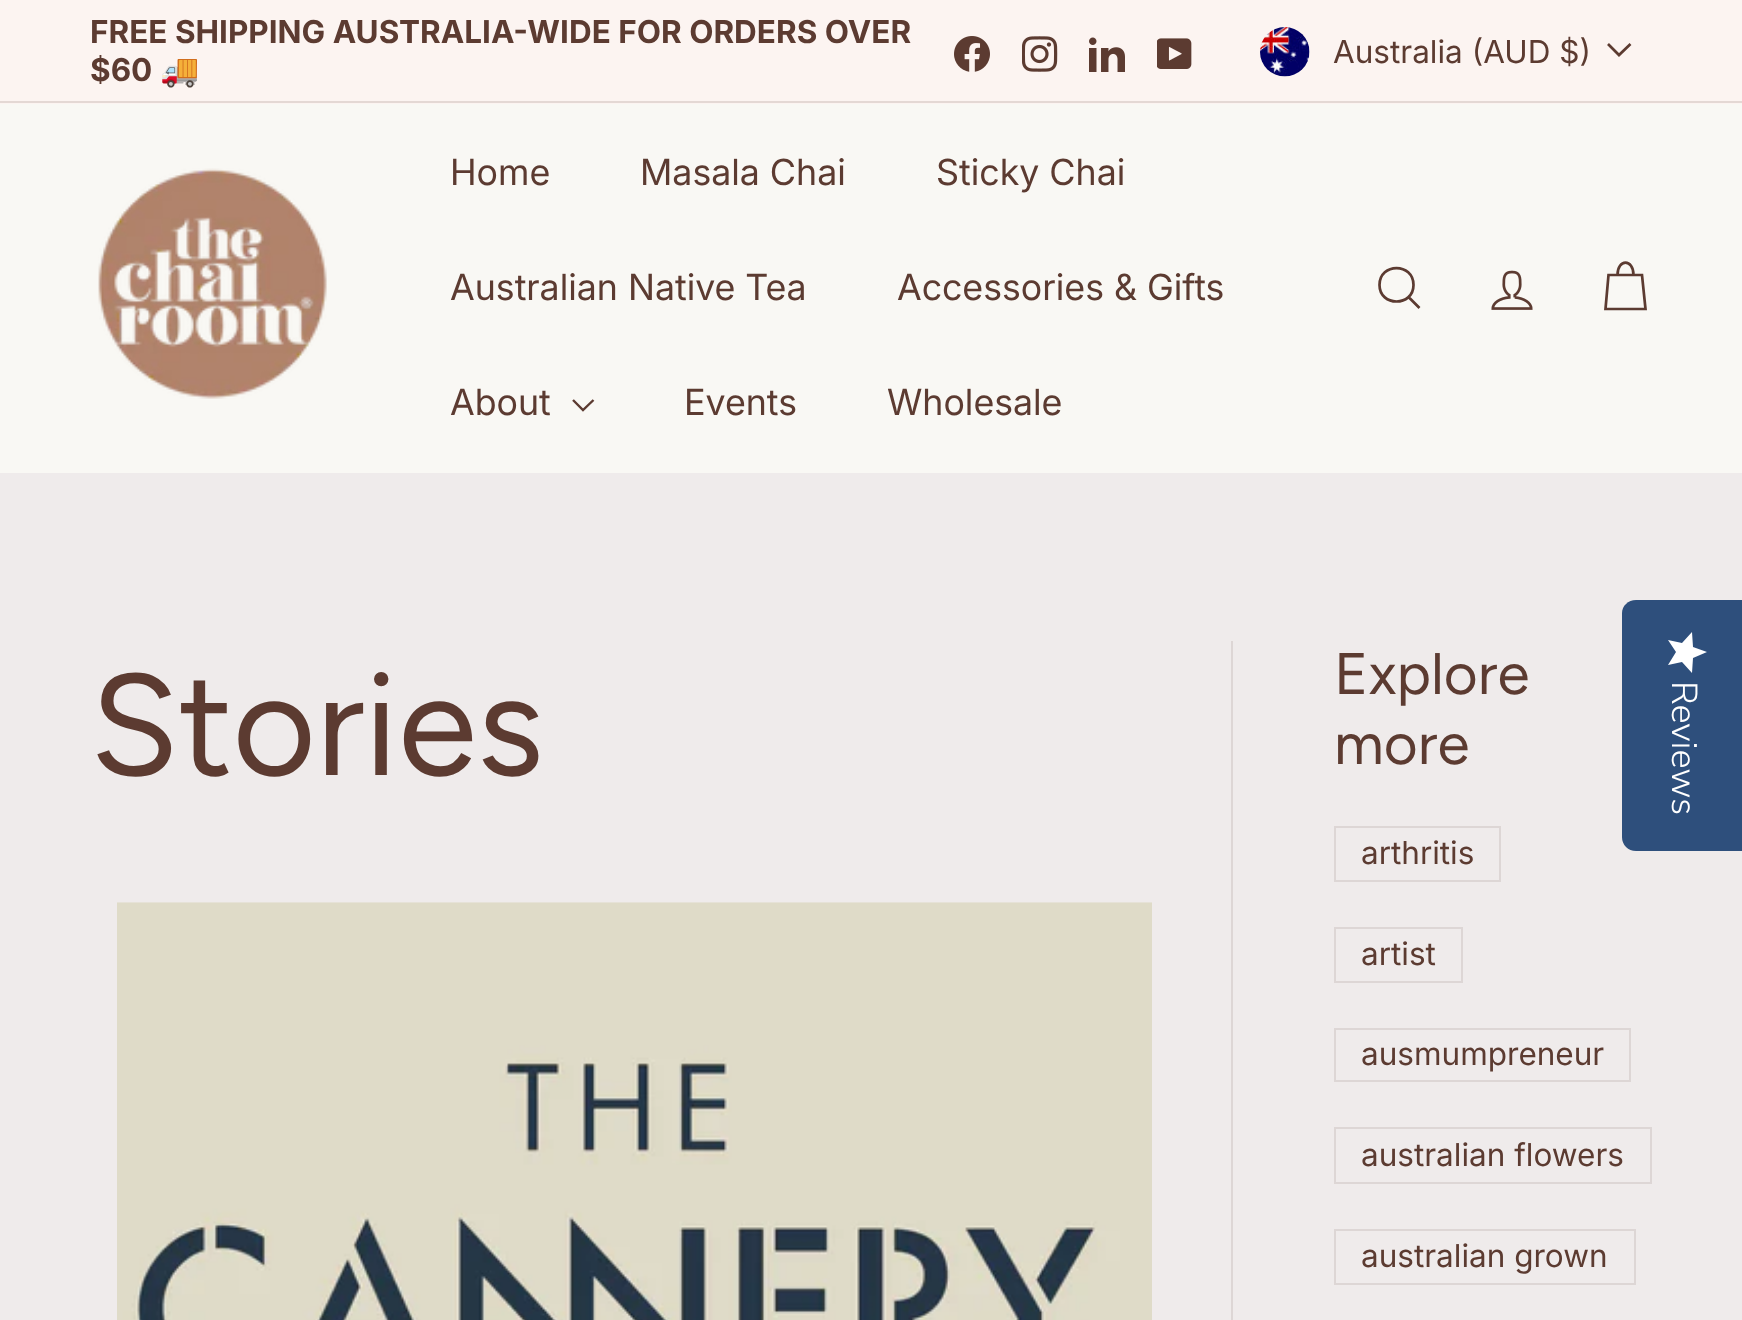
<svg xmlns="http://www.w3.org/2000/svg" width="1742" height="1320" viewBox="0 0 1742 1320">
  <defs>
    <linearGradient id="g1" gradientUnits="userSpaceOnUse" x1="1707" y1="632" x2="1707" y2="673"><stop offset="1" stop-color="#fff"/><stop offset="1" stop-color="#eaeaea"/></linearGradient>
  </defs>
  <rect width="100%" height="100%" fill="#efebeb"/>
  <path d="M0 0h1742v104H0z" fill="#fcf4f1"/>
  <image x="954" y="36" width="36" height="36" href="img/1.png"/>
  <image x="1022" y="36" width="36" height="36" href="img/2.png"/>
  <image x="1089" y="37" width="36" height="35" href="img/3.png"/>
  <image x="1157" y="38" width="35" height="31" href="img/4.png"/>
  <image x="1260" y="27" width="50" height="50" href="img/5.png"/>
  <path d="M1608 44L1619 55L1630.5 44" fill="none" stroke="#5c3b31" stroke-width="2.7"/>
  <path d="M0 101h1742v2H0z" fill="#e4d8d4"/>
  <path d="M0 104h1742v369H0z" fill="#f9f8f4"/>
  <image x="98" y="168" width="229" height="231" href="img/6.png"/>
  <path d="M573 400L583 410L593.5 400" fill="none" stroke="#5c3b31" stroke-width="2.4"/>
  <path d="M1413.5 285C1413.5 307 1379.5 307 1379.5 285C1379.5 262.5 1413.5 262.5 1413.5 285M1419.5 308L1408.5 297" fill="none" stroke="#5c3b31" stroke-width="2.7"/>
  <image x="1491" y="270" width="42" height="40" href="img/7.png"/>
  <path d="M1617.5 275C1617.5 258.5 1633.5 258.5 1633.5 275M1608.5 275H1642L1645.5 309H1605.5Z" fill="none" stroke="#5c3b31" stroke-width="2.7"/>
  <image x="117" y="902" width="1035" height="418" href="img/8.png"/>
  <path d="M1231 641h2v679H1231z" fill="#ddd6d5"/>
  <path d="M1335 827h165v54H1335z" fill="none" stroke="#ddd6d5" stroke-width="2"/>
  <path d="M1335 928h127v54H1335z" fill="none" stroke="#ddd6d5" stroke-width="2"/>
  <path d="M1335 1029h295v52H1335z" fill="none" stroke="#ddd6d5" stroke-width="2"/>
  <path d="M1335 1128h316v55H1335z" fill="none" stroke="#ddd6d5" stroke-width="2"/>
  <path d="M1335 1230h300v54H1335z" fill="none" stroke="#ddd6d5" stroke-width="2"/>
  <path d="M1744 600V851H1636C1628 851 1622 845 1622 837V613C1622 606 1628 600 1636 600Z" fill="#2e4f7c"/>
  <path d="M1676 652L1668 665L1682 662L1692 673L1693 658L1707 652L1693 647L1692 632L1682 643L1668 640Z" fill="url(#g1)"/>
  <g font-family="Inter" font-size="31.5" font-weight="bold" fill="#5c3b31">
    <text x="90" y="43">FREE SHIPPING AUSTRALIA-WIDE FOR ORDERS OVER</text>
    <text x="90" y="81">$60</text>
  </g>
  <text x="160" y="81" font-family="Noto Color Emoji" font-size="31.5" font-weight="bold" fill="#5c3b31">🚚</text>
  <text x="1333" y="63" font-family="Inter" font-size="31.5" fill="#5c3b31">Australia (AUD $)</text>
  <g font-family="'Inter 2'" font-size="36" fill="#5c3b31">
    <text x="450" y="185">Home</text>
    <text x="640" y="185">Masala Chai</text>
    <text x="936" y="185">Sticky Chai</text>
    <text x="450" y="300">Australian Native Tea</text>
    <text x="897" y="300">Accessories &amp; Gifts</text>
    <text x="450" y="415">About</text>
    <text x="684" y="415">Events</text>
    <text x="887" y="415">Wholesale</text>
  </g>
  <text x="90" y="775" font-family="Figtree" font-size="144" fill="#5c3b31">Stories</text>
  <g font-family="Figtree" font-size="58.5" fill="#5c3b31">
    <text x="1334" y="694">Explore</text>
    <text x="1334" y="764">more</text>
  </g>
  <g font-family="Inter" font-size="31.5" fill="#5c3b31">
    <text x="1361" y="864">arthritis</text>
    <text x="1361" y="965">artist</text>
    <text x="1361" y="1065">ausmumpreneur</text>
    <text x="1361" y="1166">australian flowers</text>
    <text x="1361" y="1267">australian grown</text>
  </g>
  <text x="1672" y="681" transform="rotate(90 1672 681)" font-family="Nunito Sans" font-size="36" font-weight="300" fill="#fff">Reviews</text>
</svg>
